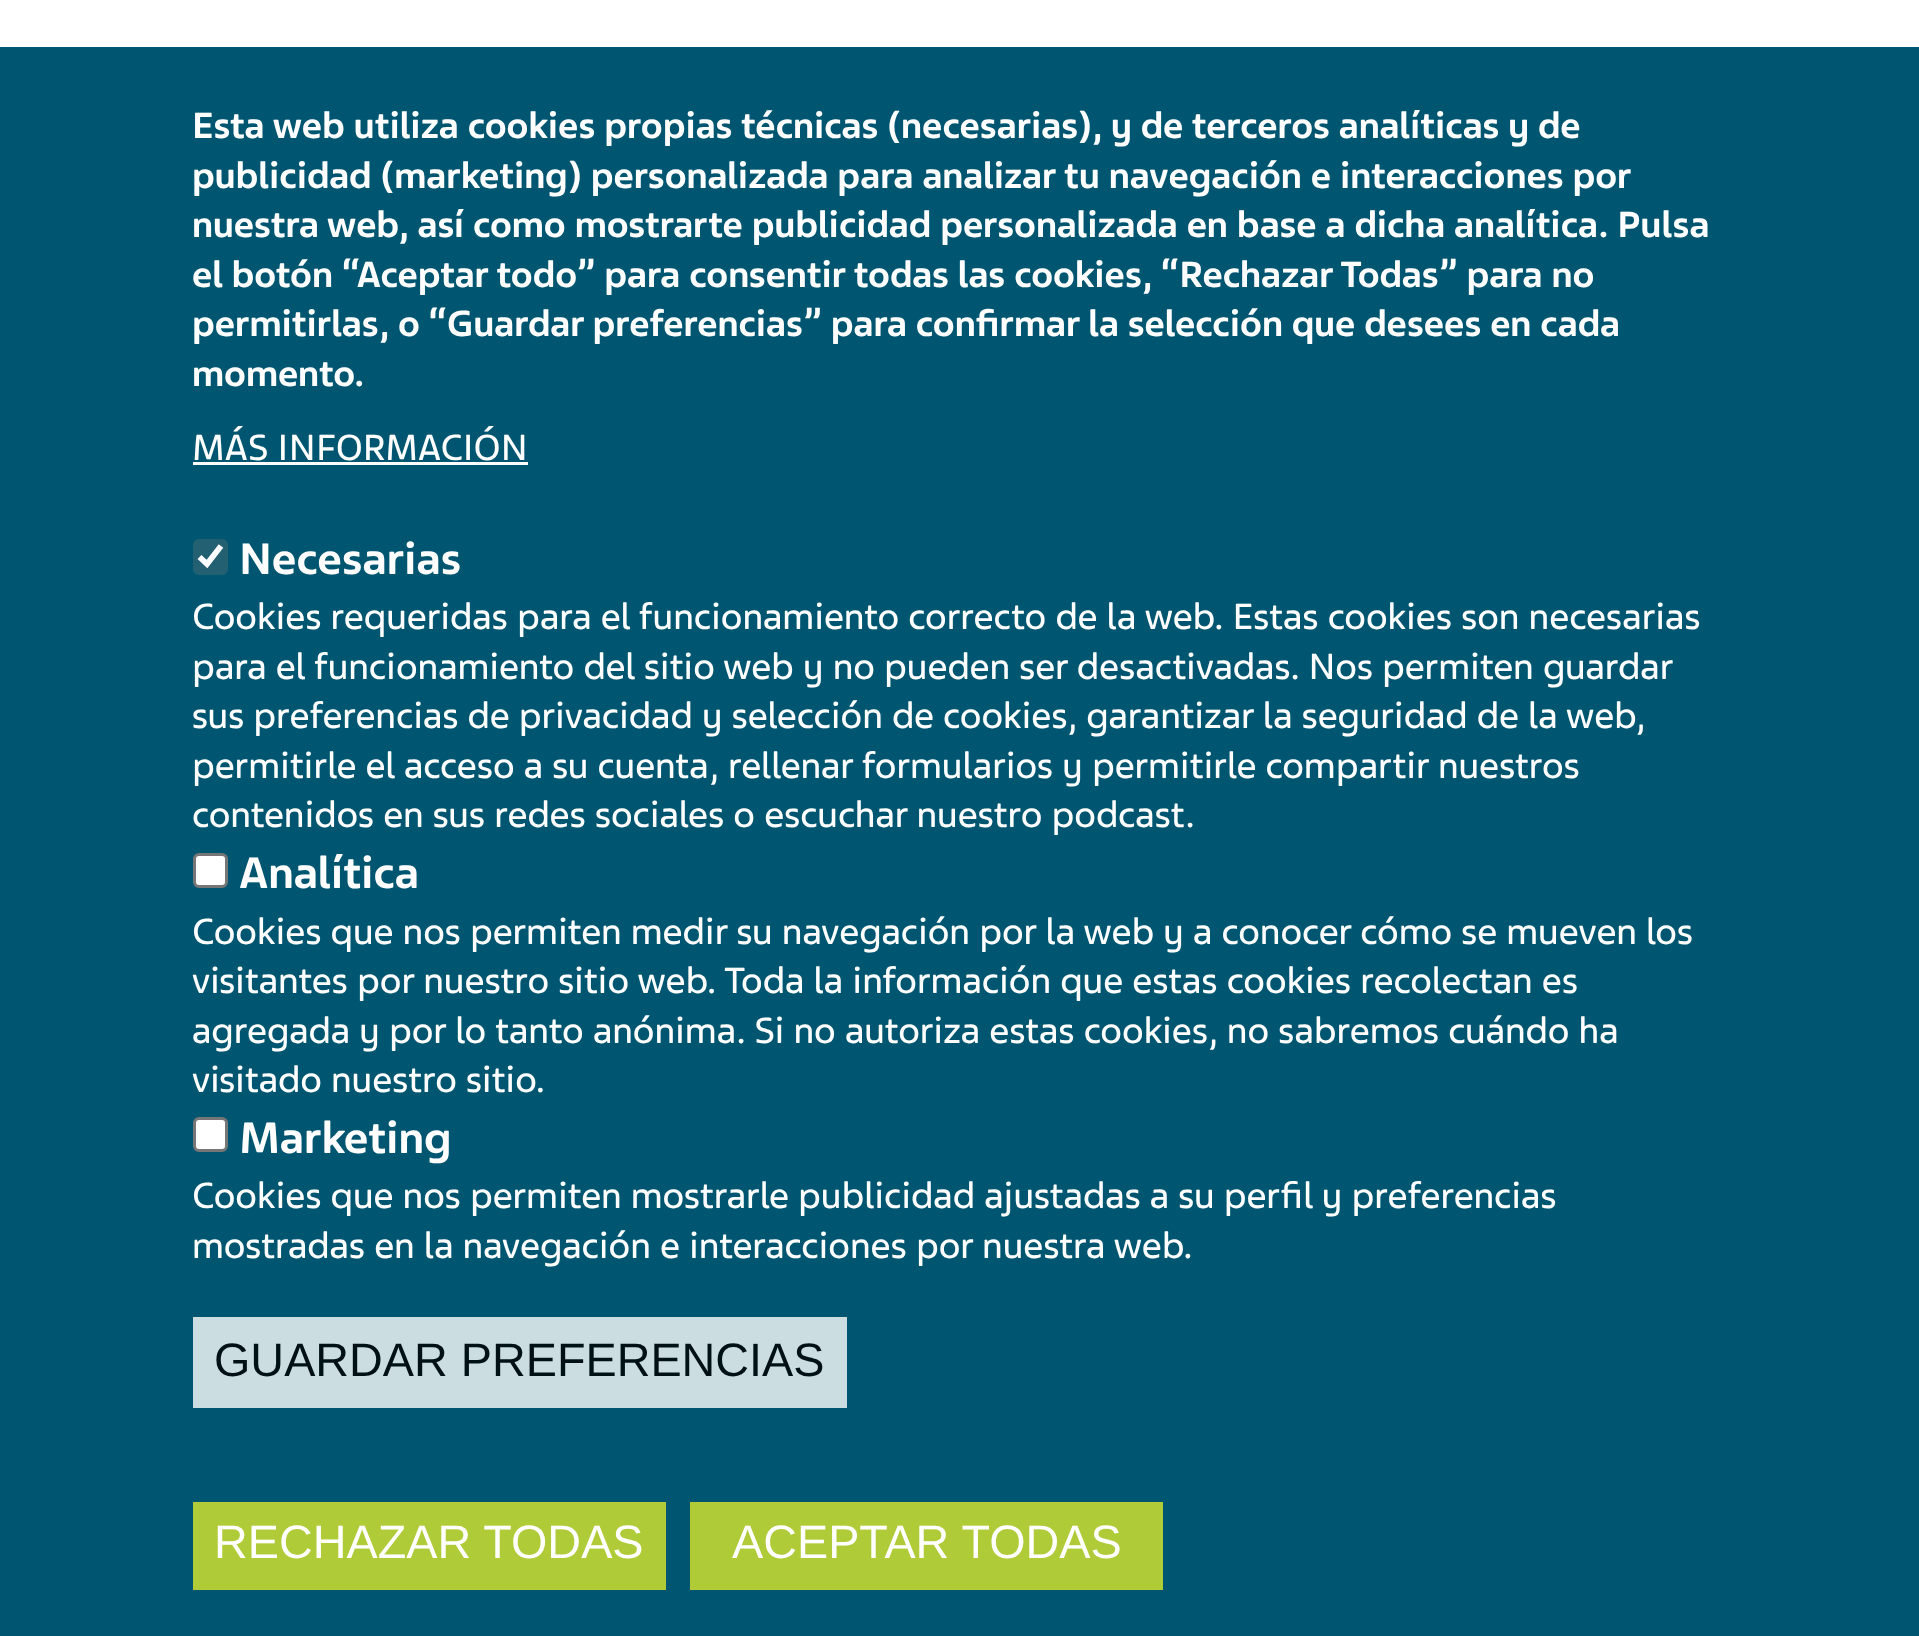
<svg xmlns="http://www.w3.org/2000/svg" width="1919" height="1636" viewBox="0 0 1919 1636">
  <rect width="100%" height="100%" fill="#fff"/>
  <path d="M0 47h1919v1589H0z" fill="#005670"/>
  <path d="M193 462h335v3H193z" fill="#fff"/>
  <rect x="193" y="539" width="35" height="36" rx="6" fill="#236072"/>
  <path d="M199.5 557L207 564L221 546" fill="none" stroke="#fff" stroke-width="5.7"/>
  <rect x="194.5" y="854.5" width="32" height="32" rx="4.5" fill="#fff" stroke="#767676" stroke-width="3"/>
  <rect x="194.5" y="1118.5" width="32" height="32" rx="4.5" fill="#fff" stroke="#767676" stroke-width="3"/>
  <path d="M193 1317h654v91H193z" fill="#ccdde2"/>
  <path d="M193 1502h473v88H193z" fill="#afcb37"/>
  <path d="M690 1502h473v88H690z" fill="#afcb37"/>
  <g font-family="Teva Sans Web" font-size="38.5" font-weight="bold" fill="#fff">
    <text x="192" y="138">Esta web utiliza cookies propias técnicas (necesarias), y de terceros analíticas y de</text>
    <text x="192" y="188">publicidad (marketing) personalizada para analizar tu navegación e interacciones por</text>
    <text x="192" y="237">nuestra web, así como mostrarte publicidad personalizada en base a dicha analítica. Pulsa</text>
    <text x="192" y="287">el botón “Aceptar todo” para consentir todas las cookies, “Rechazar Todas” para no</text>
    <text x="192" y="336">permitirlas, o “Guardar preferencias” para confirmar la selección que desees en cada</text>
    <text x="192" y="386">momento.</text>
  </g>
  <text x="192" y="460" font-family="Teva Sans Web" font-size="38.5" fill="#fff">MÁS INFORMACIÓN</text>
  <text x="239" y="574" font-family="Teva Sans Web" font-size="46.75" font-weight="bold" fill="#fff">Necesarias</text>
  <g font-family="Teva Sans Web" font-size="38.5" fill="#fff">
    <text x="192" y="629">Cookies requeridas para el funcionamiento correcto de la web. Estas cookies son necesarias</text>
    <text x="192" y="679">para el funcionamiento del sitio web y no pueden ser desactivadas. Nos permiten guardar</text>
    <text x="192" y="728">sus preferencias de privacidad y selección de cookies, garantizar la seguridad de la web,</text>
    <text x="192" y="778">permitirle el acceso a su cuenta, rellenar formularios y permitirle compartir nuestros</text>
    <text x="192" y="827">contenidos en sus redes sociales o escuchar nuestro podcast.</text>
  </g>
  <text x="239" y="888" font-family="Teva Sans Web" font-size="46.75" font-weight="bold" fill="#fff">Analítica</text>
  <g font-family="Teva Sans Web" font-size="38.5" fill="#fff">
    <text x="192" y="944">Cookies que nos permiten medir su navegación por la web y a conocer cómo se mueven los</text>
    <text x="192" y="993">visitantes por nuestro sitio web. Toda la información que estas cookies recolectan es</text>
    <text x="192" y="1043">agregada y por lo tanto anónima. Si no autoriza estas cookies, no sabremos cuándo ha</text>
    <text x="192" y="1092">visitado nuestro sitio.</text>
  </g>
  <text x="239" y="1153" font-family="Teva Sans Web" font-size="46.75" font-weight="bold" fill="#fff">Marketing</text>
  <g font-family="Teva Sans Web" font-size="38.5" fill="#fff">
    <text x="192" y="1208">Cookies que nos permiten mostrarle publicidad ajustadas a su perfil y preferencias</text>
    <text x="192" y="1258">mostradas en la navegación e interacciones por nuestra web.</text>
  </g>
  <text x="214" y="1376" font-family="Liberation Sans" font-size="46.75" fill="#001116">GUARDAR PREFERENCIAS</text>
  <g font-family="Liberation Sans" font-size="46.75" fill="#fff">
    <text x="214" y="1558">RECHAZAR TODAS</text>
    <text x="732" y="1558">ACEPTAR TODAS</text>
  </g>
</svg>
